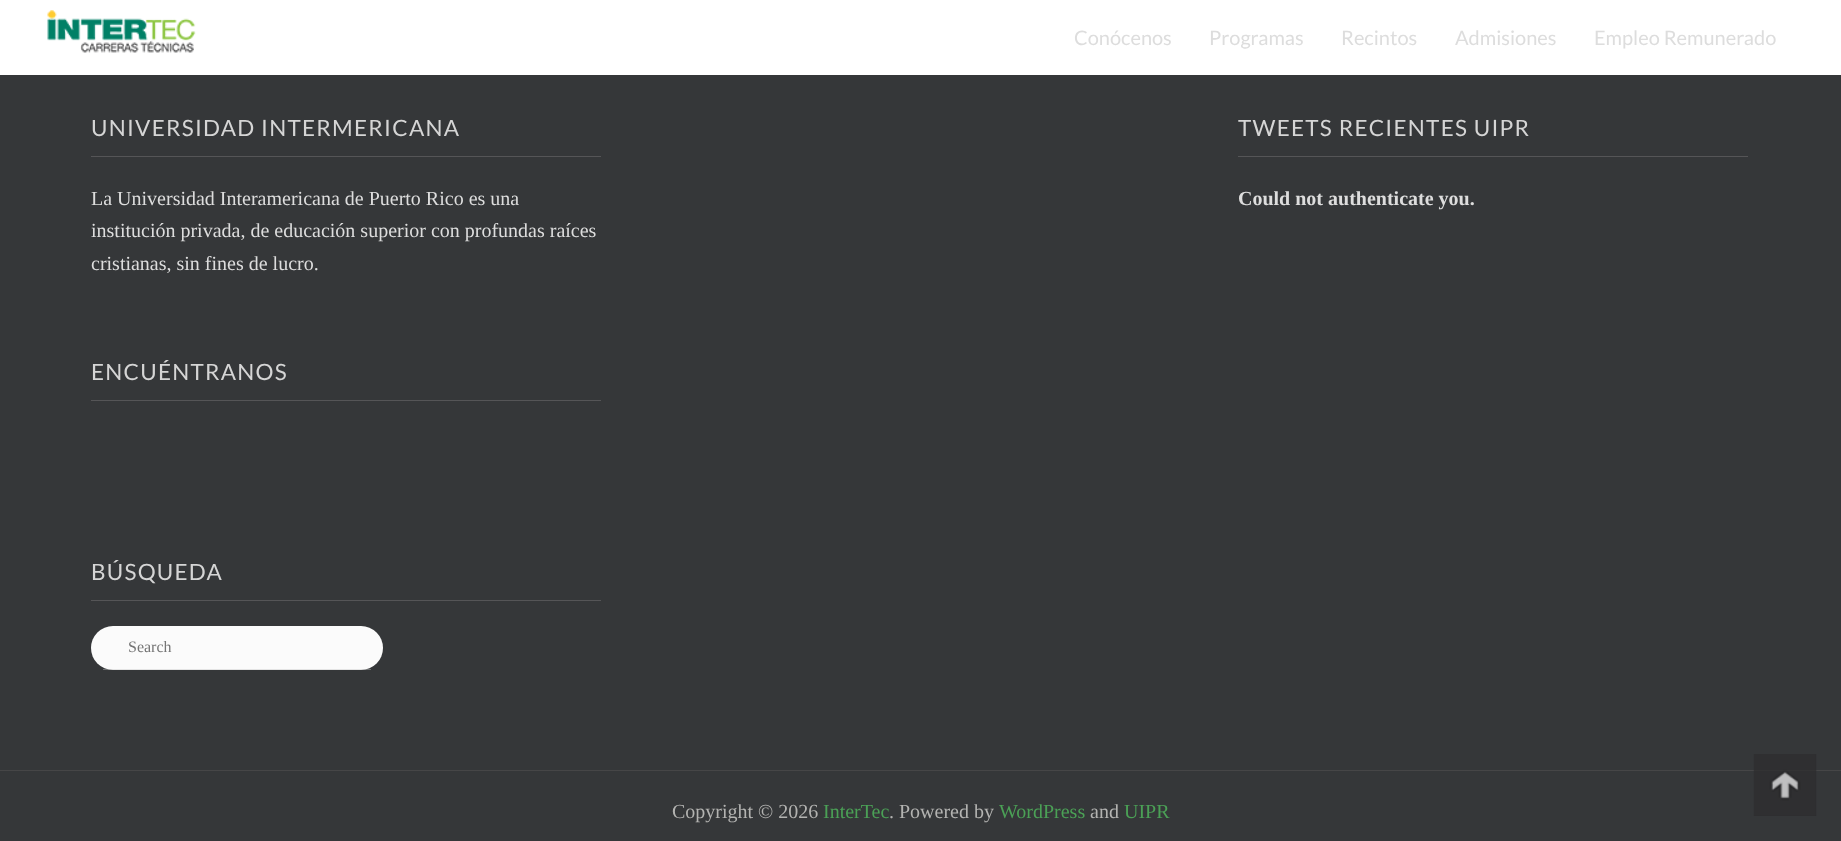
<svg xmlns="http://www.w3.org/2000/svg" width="1841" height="841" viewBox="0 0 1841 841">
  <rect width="100%" height="100%" fill="#353739"/>
  <path d="M0 0h1841v75H0z" fill="#fff"/>
  <image x="47" y="10" width="149" height="43" href="img/1.png"/>
  <path d="M1754 754h62v16H1754z" fill="#2a2b2d"/>
  <path d="M0 770h1841v1H0z" fill="#464647"/>
  <path d="M1754 770h62v1H1754z" fill="#373738"/>
  <path d="M91 156h510v1H91z" fill="#555557"/>
  <path d="M91 400h510v1H91z" fill="#555557"/>
  <path d="M91 600h510v1H91z" fill="#555557"/>
  <rect x="91" y="626" width="292" height="44" rx="22" fill="#fbfbfb"/>
  <path d="M103 669h268v1H103z" fill="#c4c4c466"/>
  <path d="M1238 156h510v1H1238z" fill="#555557"/>
  <path d="M1754 771h62v45H1754z" fill="#2a2b2d"/>
  <image x="1753" y="754" width="64" height="62" href="img/2.png"/>
  <g font-family="Lato" font-size="20" fill="#ddd">
    <text x="1074" y="45">Conócenos</text>
    <text x="1209" y="45">Programas</text>
    <text x="1341" y="45">Recintos</text>
    <text x="1455" y="45">Admisiones</text>
    <text x="1594" y="45">Empleo Remunerado</text>
  </g>
  <text x="91" y="136" font-family="Lato" font-size="22.5" letter-spacing="1.25" fill="#d5d5d5">UNIVERSIDAD INTERMERICANA</text>
  <g font-family="Liberation Serif" font-size="20" fill="#ddd">
    <text x="91" y="205">La Universidad Interamericana de Puerto Rico es una</text>
    <text x="91" y="237">institución privada, de educación superior con profundas raíces</text>
    <text x="91" y="270">cristianas, sin fines de lucro.</text>
  </g>
  <g font-family="Lato" font-size="22.5" letter-spacing="1.25" fill="#d5d5d5">
    <text x="91" y="380">ENCUÉNTRANOS</text>
    <text x="91" y="580">BÚSQUEDA</text>
  </g>
  <text x="128" y="652" font-family="Liberation Serif" font-size="16" fill="#757575">Search</text>
  <text x="1238" y="136" font-family="Lato" font-size="22.5" letter-spacing="1.25" fill="#d5d5d5">TWEETS RECIENTES UIPR</text>
  <text x="1238" y="205" font-family="Liberation Serif" font-size="20" font-weight="bold" fill="#ddd">Could not authenticate you.</text>
  <text x="672" y="818" font-family="Liberation Serif" font-size="20" fill="#b3b3b1">Copyright © 2026</text>
  <text x="823" y="818" font-family="Liberation Serif" font-size="20" fill="#4ba056">InterTec</text>
  <text x="889" y="818" font-family="Liberation Serif" font-size="20" fill="#b3b3b1">. Powered by</text>
  <text x="999" y="818" font-family="Liberation Serif" font-size="20" fill="#4ba056">WordPress</text>
  <text x="1090" y="818" font-family="Liberation Serif" font-size="20" fill="#b3b3b1">and</text>
  <text x="1124" y="818" font-family="Liberation Serif" font-size="20" fill="#4ba056">UIPR</text>
</svg>
